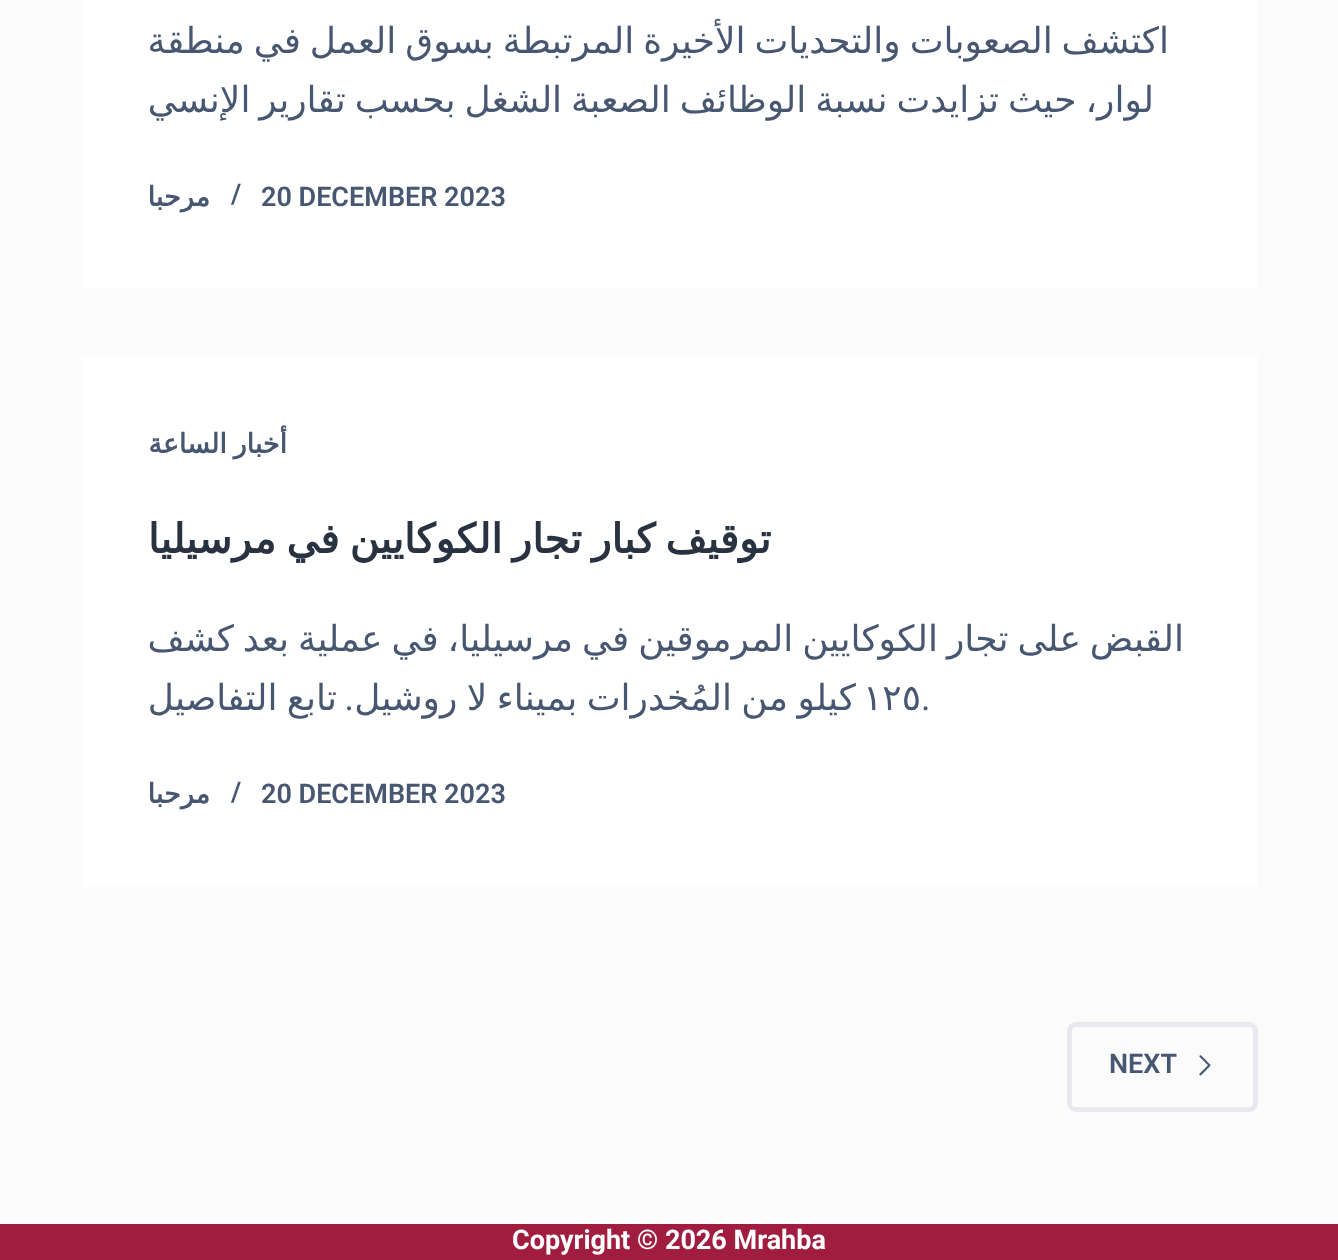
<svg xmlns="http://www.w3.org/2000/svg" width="1338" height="1260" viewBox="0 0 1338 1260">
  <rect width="100%" height="100%" fill="#fbfbfc"/>
  <path d="M81 0h1177v288H81z" fill="#fff"/>
  <path d="M81 356h1177v531H81z" fill="#fff"/>
  <rect x="1069.5" y="1024.5" width="186" height="85" rx="6.5" fill="none" stroke="#e7e9ef" stroke-width="5"/>
  <image x="1199" y="1055" width="12" height="21" href="img/1.png"/>
  <path d="M0 1224h1338v36H0z" fill="#a01d40"/>
  <g font-family="DejaVu Sans" font-size="36" direction="rtl" fill="#475671">
    <text x="1169" y="53" word-spacing="-2.5">اكتشف الصعوبات والتحديات الأخيرة المرتبطة بسوق العمل في منطقة</text>
    <text x="1154" y="112" word-spacing="-2.5">لوار، حيث تزايدت نسبة الوظائف الصعبة الشغل بحسب تقارير الإنسي</text>
  </g>
  <g font-family="Roboto" font-size="27" font-weight="600" fill="#475671">
    <text x="261" y="206">20 DECEMBER 2023</text>
    <text x="231" y="203">/</text>
  </g>
  <g font-family="DejaVu Sans" font-size="27" font-weight="bold" direction="rtl" fill="#475671">
    <text x="210" y="206">مرحبا</text>
    <text x="287" y="453" word-spacing="-2">أخبار الساعة</text>
  </g>
  <text x="771" y="553" word-spacing="-2.75" font-family="DejaVu Sans" font-size="40.5" font-weight="bold" direction="rtl" fill="#293241">توقيف كبار تجار الكوكايين في مرسيليا</text>
  <text x="1184" y="651" word-spacing="-2.5" font-family="DejaVu Sans" font-size="36" direction="rtl" fill="#475671">القبض على تجار الكوكايين المرموقين في مرسيليا، في عملية بعد كشف</text>
  <text x="921" y="710" font-family="Roboto" font-size="36" fill="#475671">.</text>
  <text x="863" y="710" font-family="DejaVu Sans" font-size="36" fill="#475671">١٢٥</text>
  <text x="856" y="710" word-spacing="-2" font-family="DejaVu Sans" font-size="36" direction="rtl" fill="#475671">كيلو من المُخدرات بميناء لا روشيل</text>
  <text x="354" y="710" font-family="Roboto" font-size="36" direction="rtl" fill="#475671">.</text>
  <text x="337" y="710" word-spacing="-2" font-family="DejaVu Sans" font-size="36" direction="rtl" fill="#475671">تابع التفاصيل</text>
  <g font-family="Roboto" font-size="27" font-weight="600" fill="#475671">
    <text x="261" y="803">20 DECEMBER 2023</text>
    <text x="231" y="801">/</text>
  </g>
  <text x="210" y="803" font-family="DejaVu Sans" font-size="27" font-weight="bold" direction="rtl" fill="#475671">مرحبا</text>
  <text x="1109" y="1073" font-family="Roboto" font-size="27" font-weight="600" fill="#475671">NEXT</text>
  <text x="512" y="1249" font-family="Roboto" font-size="27" font-weight="bold" fill="#fff">Copyright © 2026 Mrahba</text>
</svg>
